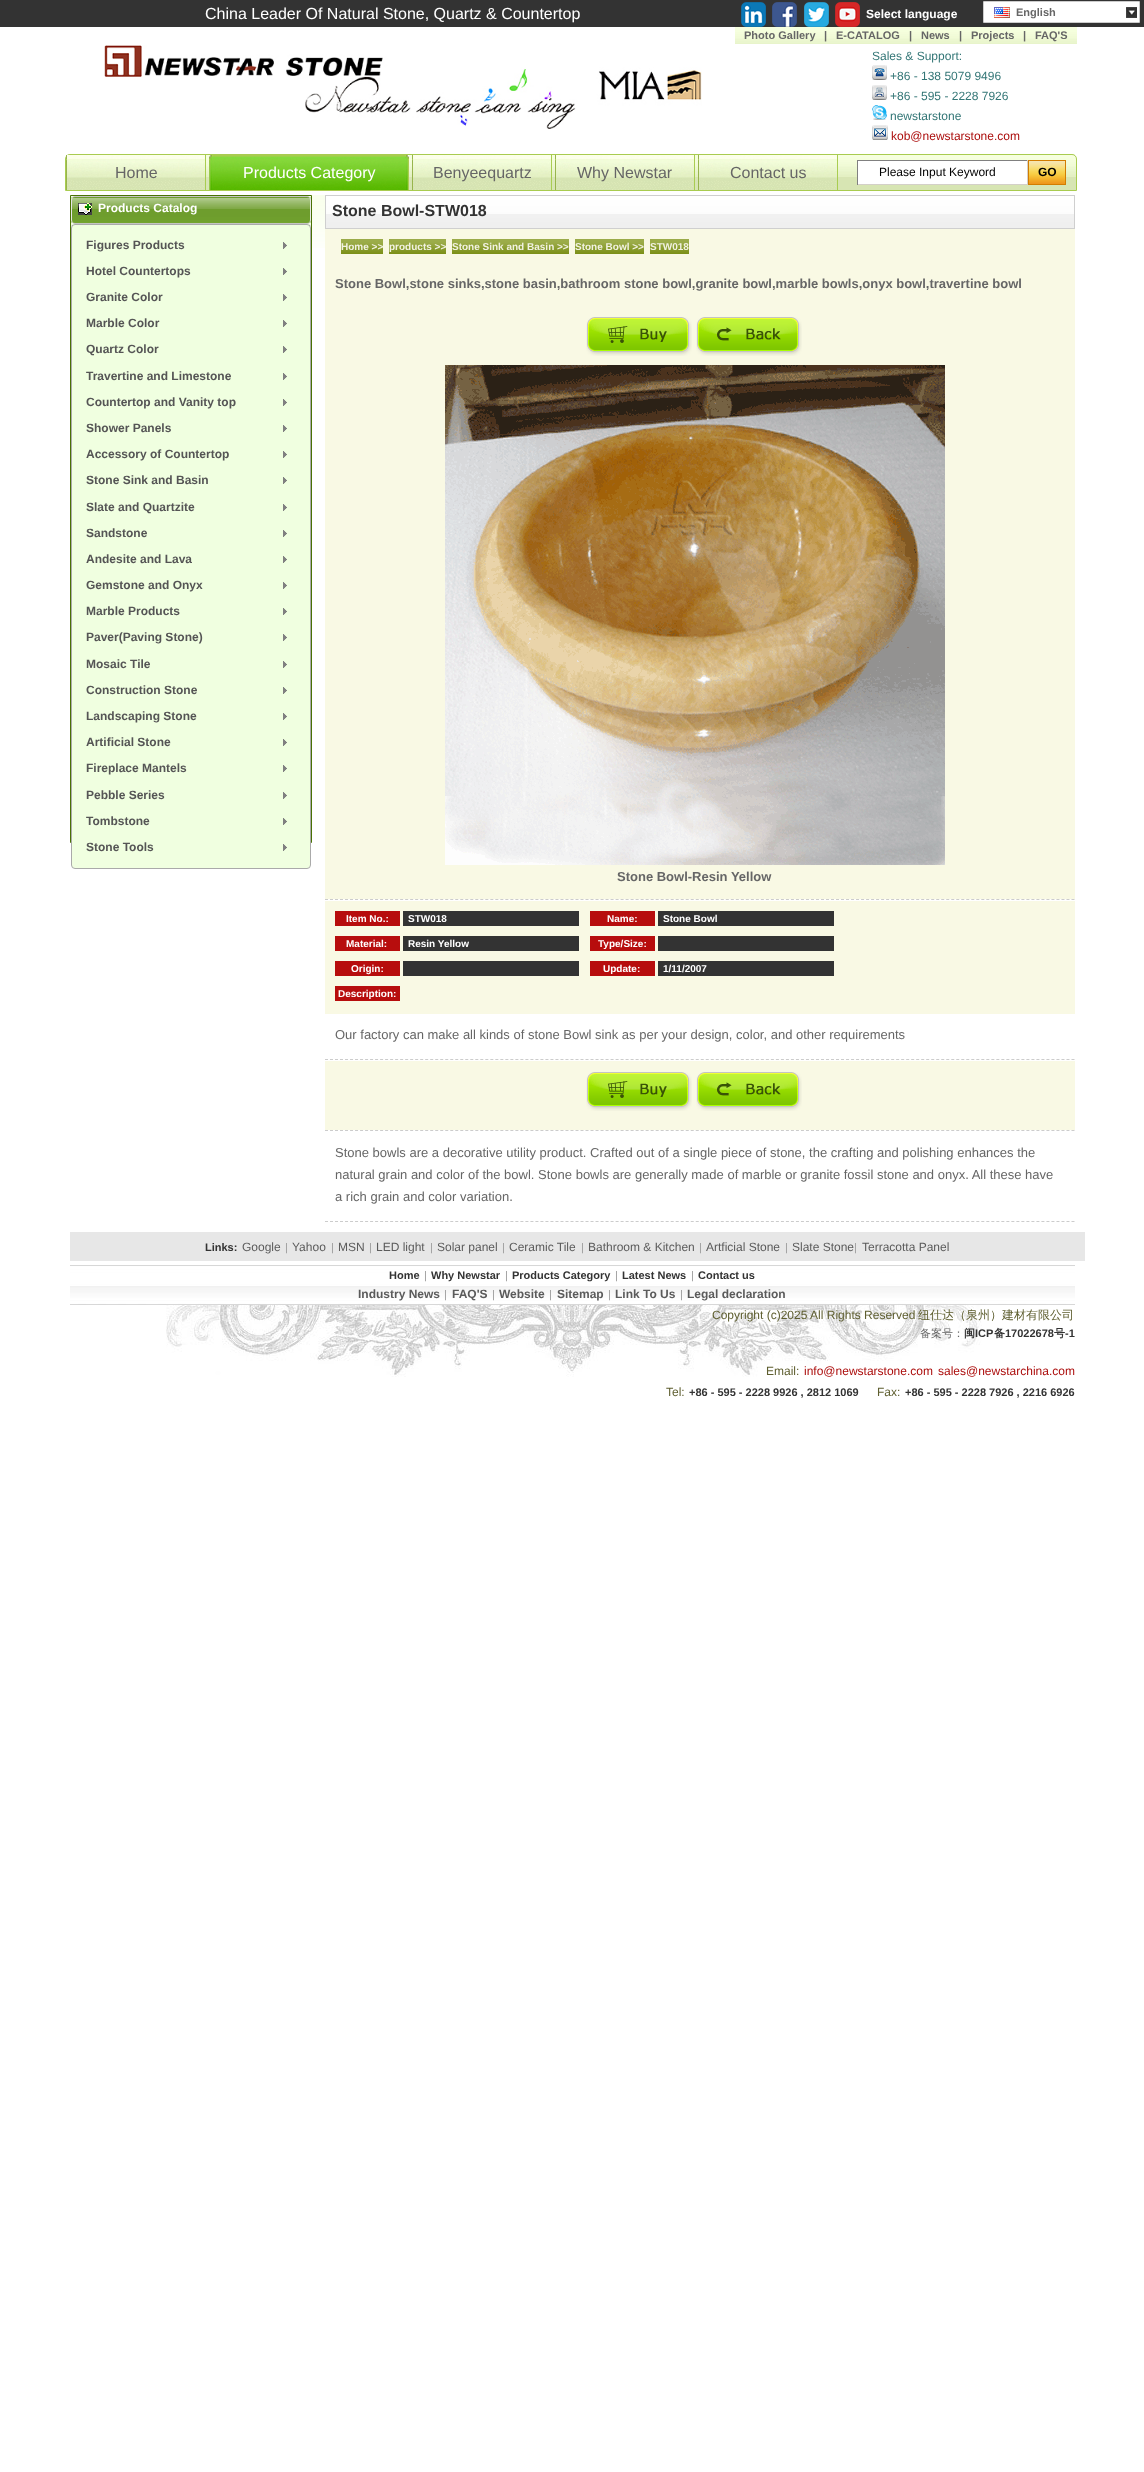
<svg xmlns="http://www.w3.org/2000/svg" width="1144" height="2472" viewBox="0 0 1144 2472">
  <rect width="100%" height="100%" fill="#fff"/>
  <path d="M0 0h1144v27H0z" fill="#333"/>
  <image x="741" y="2" width="25" height="25" href="img/1.png"/>
  <image x="772" y="2" width="25" height="25" href="img/2.png"/>
  <image x="804" y="2" width="25" height="25" href="img/3.png"/>
  <image x="835" y="2" width="25" height="25" href="img/4.png"/>
  <path d="M984 2h155v20H984z" fill="#fff"/>
  <image x="1126" y="7" width="11" height="11" href="img/5.png"/>
  <path d="M983.5 1.5h156v21H983.5z" fill="none" stroke="#ccc"/>
  <image x="994" y="7" width="16" height="11" href="img/6.png"/>
  <image x="735" y="27" width="92" height="17" href="img/7.png"/>
  <image x="827" y="27" width="85" height="17" href="img/8.png"/>
  <image x="912" y="27" width="50" height="17" href="img/9.png"/>
  <image x="962" y="27" width="64" height="17" href="img/10.png"/>
  <image x="1026" y="27" width="51" height="17" href="img/11.png"/>
  <image x="104" y="45" width="598" height="84" href="img/12.png"/>
  <image x="872" y="65" width="15" height="15" href="img/13.png"/>
  <image x="872" y="85" width="15" height="15" href="img/14.png"/>
  <image x="872" y="105" width="15" height="15" href="img/15.png"/>
  <image x="872" y="125" width="16" height="15" href="img/16.png"/>
  <image x="65" y="154" width="1012" height="36" href="img/17.png"/>
  <path d="M70 154.5H1072C1074.5 154.5 1076.5 156.5 1076.5 159V190.5H65.5V159C65.5 156.5 67.5 154.5 70 154.5Z" fill="none" stroke="#a9cc50"/>
  <image x="66" y="155" width="140" height="35" href="img/18.png"/>
  <image x="209" y="155" width="200" height="35" href="img/19.png"/>
  <image x="412" y="155" width="140" height="35" href="img/18.png"/>
  <image x="555" y="155" width="140" height="35" href="img/18.png"/>
  <image x="698" y="155" width="140" height="35" href="img/18.png"/>
  <path d="M858 161h169v23H858z" fill="#fff"/>
  <path d="M857 160h171v1H857z" fill="#808080"/>
  <path d="M1027 160h1v25H1027z" fill="#d4d0c8"/>
  <path d="M857 184h171v1H857z" fill="#d4d0c8"/>
  <path d="M857 160h1v25H857z" fill="#808080"/>
  <image x="1028" y="160" width="38" height="25" href="img/20.png"/>
  <image x="312" y="195" width="13" height="53" href="img/21.png"/>
  <path d="M71 196h240v29H71z" fill="#f2fde3"/>
  <path d="M70.5 195.5h241v647H70.5z" fill="none" stroke="#497104"/>
  <image x="71" y="197" width="240" height="26" href="img/22.png"/>
  <path d="M72.5 197.5C73 197 74 196.5 75 196.5H307C308 196.5 309 197 309.5 197.5" fill="none" stroke="#c4c5c3"/>
  <path d="M309.5 197.5C310 198 310.5 199 310.5 200V220C310.5 221 310 222 309.5 222.5" fill="none" stroke="#e6e6e6"/>
  <path d="M309.5 222.5C309 223 308 223.5 307 223.5H75C74 223.5 73 223 72.5 222.5" fill="none" stroke="#c4c5c3"/>
  <path d="M72.5 222.5C72 222 71.5 221 71.5 220V200C71.5 199 72 198 72.5 197.5" fill="none" stroke="#e6e6e6"/>
  <image x="78" y="203" width="14" height="12" href="img/23.png"/>
  <image x="72" y="225" width="238" height="1" href="img/24.png"/>
  <path d="M310 225h1v3H310z" fill="#e6e6e6"/>
  <path d="M71 225h1v3H71z" fill="#e6e6e6"/>
  <image x="326" y="195" width="748" height="33" href="img/25.png"/>
  <path d="M1074 195h1v34H1074z" fill="#cfcfcf"/>
  <path d="M325 228h750v1H325z" fill="#cfcfcf"/>
  <path d="M325 195h1v34H325z" fill="#cfcfcf"/>
  <path d="M325 229h750v670H325z" fill="#f9f9e4"/>
  <image x="341" y="239" width="42" height="15" href="img/26.png"/>
  <image x="389" y="239" width="57" height="15" href="img/27.png"/>
  <image x="452" y="239" width="117" height="15" href="img/28.png"/>
  <image x="575" y="239" width="69" height="15" href="img/29.png"/>
  <image x="650" y="239" width="39" height="15" href="img/30.png"/>
  <image x="586" y="317" width="106" height="39" href="img/31.png"/>
  <image x="696" y="317" width="106" height="39" href="img/32.png"/>
  <image x="445" y="365" width="500" height="500" href="img/33.png"/>
  <path d="M325 899.5H1075" fill="none" stroke="#ccc" stroke-dasharray="3 2.01"/>
  <path d="M325 901h750v113H325z" fill="#f9f9e4"/>
  <path d="M335 911h65v15H335z" fill="#b70d0d"/>
  <path d="M403 911h176v15H403z" fill="#333"/>
  <path d="M590 911h65v15H590z" fill="#b70d0d"/>
  <path d="M658 911h176v15H658z" fill="#333"/>
  <path d="M335 936h65v15H335z" fill="#b70d0d"/>
  <path d="M403 936h176v15H403z" fill="#333"/>
  <path d="M590 936h65v15H590z" fill="#b70d0d"/>
  <path d="M658 936h176v15H658z" fill="#333"/>
  <path d="M335 961h65v15H335z" fill="#b70d0d"/>
  <path d="M403 961h176v15H403z" fill="#333"/>
  <path d="M590 961h65v15H590z" fill="#b70d0d"/>
  <path d="M658 961h176v15H658z" fill="#333"/>
  <path d="M335 986h65v15H335z" fill="#b70d0d"/>
  <path d="M325 1059.5H1075" fill="none" stroke="#ccc" stroke-dasharray="3 2.01"/>
  <path d="M325 1061h750v69H325z" fill="#f9f9e4"/>
  <image x="586" y="1072" width="106" height="39" href="img/31.png"/>
  <image x="696" y="1072" width="106" height="39" href="img/32.png"/>
  <path d="M325 1130.5H1075" fill="none" stroke="#ccc" stroke-dasharray="3 2.01"/>
  <path d="M325 1221.5H1075" fill="none" stroke="#ccc" stroke-dasharray="3 2.01"/>
  <rect x="71.5" y="224.5" width="239" height="644" rx="3.5" fill="#f0ffe0" stroke="#aaa"/>
  <image x="283" y="242" width="4" height="7" href="img/34.png"/>
  <image x="283" y="268" width="4" height="7" href="img/34.png"/>
  <image x="283" y="294" width="4" height="7" href="img/34.png"/>
  <image x="283" y="320" width="4" height="7" href="img/34.png"/>
  <image x="283" y="346" width="4" height="7" href="img/34.png"/>
  <image x="283" y="373" width="4" height="7" href="img/34.png"/>
  <image x="283" y="399" width="4" height="7" href="img/34.png"/>
  <image x="283" y="425" width="4" height="7" href="img/34.png"/>
  <image x="283" y="451" width="4" height="7" href="img/34.png"/>
  <image x="283" y="477" width="4" height="7" href="img/34.png"/>
  <image x="283" y="504" width="4" height="7" href="img/34.png"/>
  <image x="283" y="530" width="4" height="7" href="img/34.png"/>
  <image x="283" y="556" width="4" height="7" href="img/34.png"/>
  <image x="283" y="582" width="4" height="7" href="img/34.png"/>
  <image x="283" y="608" width="4" height="7" href="img/34.png"/>
  <image x="283" y="634" width="4" height="7" href="img/34.png"/>
  <image x="283" y="661" width="4" height="7" href="img/34.png"/>
  <image x="283" y="687" width="4" height="7" href="img/34.png"/>
  <image x="283" y="713" width="4" height="7" href="img/34.png"/>
  <image x="283" y="739" width="4" height="7" href="img/34.png"/>
  <image x="283" y="765" width="4" height="7" href="img/34.png"/>
  <image x="283" y="792" width="4" height="7" href="img/34.png"/>
  <image x="283" y="818" width="4" height="7" href="img/34.png"/>
  <image x="283" y="844" width="4" height="7" href="img/34.png"/>
  <path d="M70 1232h1015v29H70z" fill="#e7e7e7"/>
  <image x="70" y="1265" width="1005" height="40" href="img/35.png"/>
  <image x="166" y="1305" width="816" height="72" href="img/36.png"/>
  <text x="205" y="19" font-family="Liberation Sans" font-size="16" fill="#fff">China Leader Of Natural Stone, Quartz &amp; Countertop</text>
  <text x="866" y="18" font-family="Liberation Sans" font-size="12" font-weight="bold" fill="#fff">Select language</text>
  <g font-family="Liberation Sans" font-size="11" font-weight="bold" fill="#666">
    <text x="1016" y="16">English</text>
    <text x="744" y="39">Photo Gallery</text>
    <text x="824" y="39">|</text>
    <text x="836" y="39">E-CATALOG</text>
    <text x="909" y="39">|</text>
    <text x="921" y="39">News</text>
    <text x="959" y="39">|</text>
    <text x="971" y="39">Projects</text>
    <text x="1023" y="39">|</text>
    <text x="1035" y="39">FAQ'S</text>
  </g>
  <g font-family="Liberation Sans" font-size="12" fill="#337676">
    <text x="872" y="60">Sales &amp; Support:</text>
    <text x="890" y="80">+86 - 138 5079 9496</text>
    <text x="890" y="100">+86 - 595 - 2228 7926</text>
    <text x="890" y="120">newstarstone</text>
  </g>
  <text x="891" y="140" font-family="Liberation Sans" font-size="12" fill="#ac0e0d">kob@newstarstone.com</text>
  <text x="115" y="178" font-family="Liberation Sans" font-size="16" fill="#666">Home</text>
  <text x="243" y="178" font-family="Liberation Sans" font-size="16" fill="#fff">Products Category</text>
  <g font-family="Liberation Sans" font-size="16" fill="#666">
    <text x="433" y="178">Benyeequartz</text>
    <text x="577" y="178">Why Newstar</text>
    <text x="730" y="178">Contact us</text>
  </g>
  <text x="879" y="176" font-family="Liberation Sans" font-size="12" fill="#000">Please Input Keyword</text>
  <text x="1038" y="176" font-family="Liberation Sans" font-size="12" font-weight="bold" fill="#000">GO</text>
  <text x="98" y="212" font-family="Liberation Sans" font-size="12" font-weight="bold" fill="#fff">Products Catalog</text>
  <text x="332" y="216" font-family="Liberation Sans" font-size="16" font-weight="bold" fill="#333">Stone Bowl-STW018</text>
  <g font-family="Liberation Sans" font-size="10" font-weight="bold" fill="#f2f2e2">
    <text x="341" y="250">Home &gt;&gt;</text>
    <text x="389" y="250">products &gt;&gt;</text>
    <text x="452" y="250">Stone Sink and Basin &gt;&gt;</text>
    <text x="575" y="250">Stone Bowl &gt;&gt;</text>
    <text x="650" y="250">STW018</text>
  </g>
  <g font-family="Liberation Sans" font-size="13" font-weight="bold" fill="#666">
    <text x="335" y="288">Stone Bowl,stone sinks,stone basin,bathroom stone bowl,granite bowl,marble bowls,onyx bowl,travertine bowl</text>
    <text x="617" y="881">Stone Bowl-Resin Yellow</text>
  </g>
  <g font-family="Liberation Sans" font-size="10" font-weight="bold" fill="#fff">
    <text x="346" y="922">Item No.:</text>
    <text x="408" y="922">STW018</text>
    <text x="607" y="922">Name:</text>
    <text x="663" y="922">Stone Bowl</text>
    <text x="346" y="947">Material:</text>
    <text x="408" y="947">Resin Yellow</text>
    <text x="598" y="947">Type/Size:</text>
    <text x="351" y="972">Origin:</text>
    <text x="603" y="972">Update:</text>
    <text x="663" y="972">1/11/2007</text>
    <text x="338" y="997">Description:</text>
  </g>
  <g font-family="Liberation Sans" font-size="13" fill="#666">
    <text x="335" y="1039">Our factory can make all kinds of stone Bowl sink as per your design, color, and other requirements</text>
    <text x="335" y="1157">Stone bowls are a decorative utility product. Crafted out of a single piece of stone, the crafting and polishing enhances the</text>
    <text x="335" y="1179">natural grain and color of the bowl. Stone bowls are generally made of marble or granite fossil stone and onyx. All these have</text>
    <text x="335" y="1201">a rich grain and color variation.</text>
  </g>
  <g font-family="Liberation Sans" font-size="12" font-weight="bold" fill="#555">
    <text x="86" y="249">Figures Products</text>
    <text x="86" y="275">Hotel Countertops</text>
    <text x="86" y="301">Granite Color</text>
    <text x="86" y="327">Marble Color</text>
    <text x="86" y="353">Quartz Color</text>
    <text x="86" y="380">Travertine and Limestone</text>
    <text x="86" y="406">Countertop and Vanity top</text>
    <text x="86" y="432">Shower Panels</text>
    <text x="86" y="458">Accessory of Countertop</text>
    <text x="86" y="484">Stone Sink and Basin</text>
    <text x="86" y="511">Slate and Quartzite</text>
    <text x="86" y="537">Sandstone</text>
    <text x="86" y="563">Andesite and Lava</text>
    <text x="86" y="589">Gemstone and Onyx</text>
    <text x="86" y="615">Marble Products</text>
    <text x="86" y="641">Paver(Paving Stone)</text>
    <text x="86" y="668">Mosaic Tile</text>
    <text x="86" y="694">Construction Stone</text>
    <text x="86" y="720">Landscaping Stone</text>
    <text x="86" y="746">Artificial Stone</text>
    <text x="86" y="772">Fireplace Mantels</text>
    <text x="86" y="799">Pebble Series</text>
    <text x="86" y="825">Tombstone</text>
    <text x="86" y="851">Stone Tools</text>
  </g>
  <text x="205" y="1251" font-family="Liberation Sans" font-size="11" font-weight="bold" fill="#333">Links:</text>
  <text x="242" y="1251" font-family="Liberation Sans" font-size="12" fill="#5b5b5b">Google</text>
  <text x="285" y="1251" font-family="Liberation Sans" font-size="11" fill="#9b9b9b">|</text>
  <text x="292" y="1251" font-family="Liberation Sans" font-size="12" fill="#5b5b5b">Yahoo</text>
  <text x="331" y="1251" font-family="Liberation Sans" font-size="11" fill="#9b9b9b">|</text>
  <text x="338" y="1251" font-family="Liberation Sans" font-size="12" fill="#5b5b5b">MSN</text>
  <text x="369" y="1251" font-family="Liberation Sans" font-size="11" fill="#9b9b9b">|</text>
  <text x="376" y="1251" font-family="Liberation Sans" font-size="12" fill="#5b5b5b">LED light</text>
  <text x="430" y="1251" font-family="Liberation Sans" font-size="11" fill="#9b9b9b">|</text>
  <text x="437" y="1251" font-family="Liberation Sans" font-size="12" fill="#5b5b5b">Solar panel</text>
  <text x="502" y="1251" font-family="Liberation Sans" font-size="11" fill="#9b9b9b">|</text>
  <text x="509" y="1251" font-family="Liberation Sans" font-size="12" fill="#5b5b5b">Ceramic Tile</text>
  <text x="581" y="1251" font-family="Liberation Sans" font-size="11" fill="#9b9b9b">|</text>
  <text x="588" y="1251" font-family="Liberation Sans" font-size="12" fill="#5b5b5b">Bathroom &amp; Kitchen</text>
  <text x="699" y="1251" font-family="Liberation Sans" font-size="11" fill="#9b9b9b">|</text>
  <text x="706" y="1251" font-family="Liberation Sans" font-size="12" fill="#5b5b5b">Artficial Stone</text>
  <text x="785" y="1251" font-family="Liberation Sans" font-size="11" fill="#9b9b9b">|</text>
  <text x="792" y="1251" font-family="Liberation Sans" font-size="12" fill="#5b5b5b">Slate Stone</text>
  <text x="854" y="1251" font-family="Liberation Sans" font-size="11" fill="#9b9b9b">|</text>
  <text x="862" y="1251" font-family="Liberation Sans" font-size="12" fill="#5b5b5b">Terracotta Panel</text>
  <text x="389" y="1279" font-family="Liberation Sans" font-size="11" font-weight="bold" fill="#333">Home</text>
  <text x="424" y="1279" font-family="Liberation Sans" font-size="11" fill="#9b9b9b">|</text>
  <text x="431" y="1279" font-family="Liberation Sans" font-size="11" font-weight="bold" fill="#333">Why Newstar</text>
  <text x="505" y="1279" font-family="Liberation Sans" font-size="11" fill="#9b9b9b">|</text>
  <text x="512" y="1279" font-family="Liberation Sans" font-size="11" font-weight="bold" fill="#333">Products Category</text>
  <text x="615" y="1279" font-family="Liberation Sans" font-size="11" fill="#9b9b9b">|</text>
  <text x="622" y="1279" font-family="Liberation Sans" font-size="11" font-weight="bold" fill="#333">Latest News</text>
  <text x="691" y="1279" font-family="Liberation Sans" font-size="11" fill="#9b9b9b">|</text>
  <text x="698" y="1279" font-family="Liberation Sans" font-size="11" font-weight="bold" fill="#333">Contact us</text>
  <text x="358" y="1298" font-family="Liberation Sans" font-size="12" font-weight="bold" fill="#5b5b5b">Industry News</text>
  <text x="444" y="1298" font-family="Liberation Sans" font-size="11" fill="#9b9b9b">|</text>
  <text x="452" y="1298" font-family="Liberation Sans" font-size="12" font-weight="bold" fill="#5b5b5b">FAQ'S</text>
  <text x="492" y="1298" font-family="Liberation Sans" font-size="11" fill="#9b9b9b">|</text>
  <text x="499" y="1298" font-family="Liberation Sans" font-size="12" font-weight="bold" fill="#5b5b5b">Website</text>
  <text x="549" y="1298" font-family="Liberation Sans" font-size="11" fill="#9b9b9b">|</text>
  <text x="557" y="1298" font-family="Liberation Sans" font-size="12" font-weight="bold" fill="#5b5b5b">Sitemap</text>
  <text x="608" y="1298" font-family="Liberation Sans" font-size="11" fill="#9b9b9b">|</text>
  <text x="615" y="1298" font-family="Liberation Sans" font-size="12" font-weight="bold" fill="#5b5b5b">Link To Us</text>
  <text x="680" y="1298" font-family="Liberation Sans" font-size="11" fill="#9b9b9b">|</text>
  <text x="687" y="1298" font-family="Liberation Sans" font-size="12" font-weight="bold" fill="#5b5b5b">Legal declaration</text>
  <text x="712" y="1319" font-family="Liberation Sans" font-size="12" fill="#5e5e2f">Copyright (c)2025 All Rights Reserved</text>
  <text x="918" y="1319" font-family="WenQuanYi Zen Hei" font-size="12" font-weight="500" fill="#5e5e2f">纽仕达（泉州）建材有限公司</text>
  <text x="920" y="1337" font-family="WenQuanYi Zen Hei" font-size="11" font-weight="500" fill="#666">备案号：</text>
  <text x="964" y="1337" font-family="WenQuanYi Zen Hei" font-size="11" font-weight="bold" fill="#333">闽</text>
  <text x="975" y="1337" font-family="Liberation Sans" font-size="11" font-weight="bold" fill="#333">ICP</text>
  <text x="994" y="1337" font-family="WenQuanYi Zen Hei" font-size="11" font-weight="bold" fill="#333">备</text>
  <text x="1005" y="1337" font-family="Liberation Sans" font-size="11" font-weight="bold" fill="#333">17022678</text>
  <text x="1054" y="1337" font-family="WenQuanYi Zen Hei" font-size="11" font-weight="bold" fill="#333">号</text>
  <text x="1065" y="1337" font-family="Liberation Sans" font-size="11" font-weight="bold" fill="#333">-1</text>
  <text x="766" y="1375" font-family="Liberation Sans" font-size="12" fill="#5e5e2f">Email:</text>
  <g font-family="Liberation Sans" font-size="12" fill="#ac0e0d">
    <text x="804" y="1375">info@newstarstone.com</text>
    <text x="938" y="1375">sales@newstarchina.com</text>
  </g>
  <text x="666" y="1396" font-family="Liberation Sans" font-size="12" fill="#5e5e2f">Tel:</text>
  <text x="689" y="1396" font-family="Liberation Sans" font-size="11" font-weight="bold" fill="#333">+86 - 595 - 2228 9926 , 2812 1069</text>
  <text x="877" y="1396" font-family="Liberation Sans" font-size="12" fill="#5e5e2f">Fax:</text>
  <text x="905" y="1396" font-family="Liberation Sans" font-size="11" font-weight="bold" fill="#333">+86 - 595 - 2228 7926 , 2216 6926</text>
</svg>
